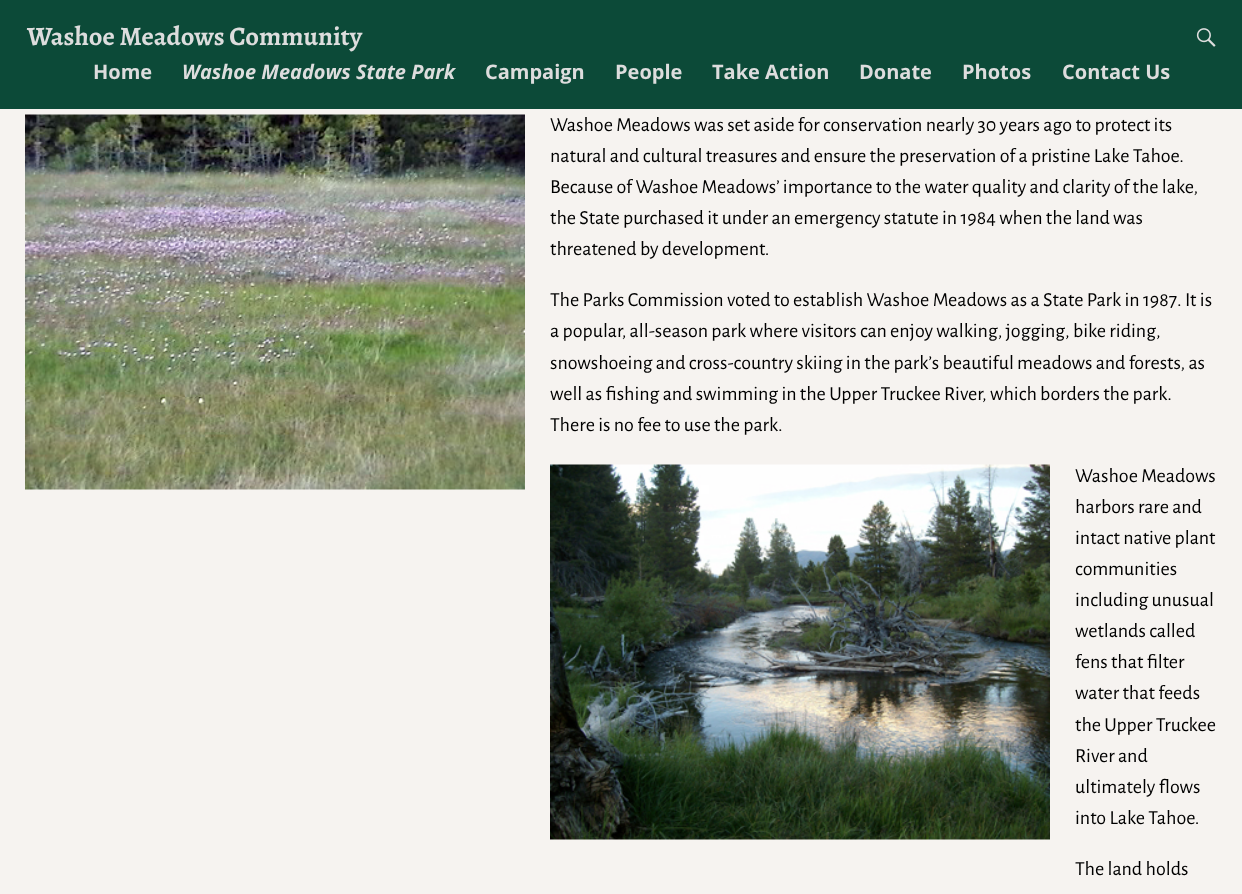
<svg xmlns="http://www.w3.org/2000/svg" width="1242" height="894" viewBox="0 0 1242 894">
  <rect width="100%" height="100%" fill="#f6f3f0"/>
  <path d="M0 0h1242v109H0z" fill="#0c4a38"/>
  <image x="1196" y="28" width="20" height="19" href="img/1.png"/>
  <image x="25" y="114" width="500" height="376" href="img/2.png"/>
  <image x="550" y="464" width="500" height="376" href="img/3.png"/>
  <text x="27" y="45" font-family="Alegreya" font-size="26.6" font-weight="bold" fill="#ddd">Washoe Meadows Community</text>
  <text x="93" y="79" font-family="Open Sans" font-size="20" font-weight="bold" fill="#ddd">Home</text>
  <text x="182" y="79" font-family="Open Sans" font-size="20" font-weight="bold" font-style="italic" fill="#ddd">Washoe Meadows State Park</text>
  <g font-family="Open Sans" font-size="20" font-weight="bold" fill="#ddd">
    <text x="485" y="79">Campaign</text>
    <text x="615" y="79">People</text>
    <text x="712" y="79">Take Action</text>
    <text x="859" y="79">Donate</text>
    <text x="962" y="79">Photos</text>
    <text x="1062" y="79">Contact Us</text>
  </g>
  <g font-family="Alegreya Sans" font-size="20" fill="#000">
    <text x="550" y="131">Washoe Meadows was set aside for conservation nearly 30 years ago to protect its</text>
    <text x="550" y="162">natural and cultural treasures and ensure the preservation of a pristine Lake Tahoe.</text>
    <text x="550" y="193">Because of Washoe Meadows’ importance to the water quality and clarity of the lake,</text>
    <text x="550" y="224">the State purchased it under an emergency statute in 1984 when the land was</text>
    <text x="550" y="255">threatened by development.</text>
    <text x="550" y="306">The Parks Commission voted to establish Washoe Meadows as a State Park in 1987. It is</text>
    <text x="550" y="337">a popular, all-season park where visitors can enjoy walking, jogging, bike riding,</text>
    <text x="550" y="369">snowshoeing and cross-country skiing in the park’s beautiful meadows and forests, as</text>
    <text x="550" y="400">well as fishing and swimming in the Upper Truckee River, which borders the park.</text>
    <text x="550" y="431">There is no fee to use the park.</text>
    <text x="1075" y="482">Washoe Meadows</text>
    <text x="1075" y="513">harbors rare and</text>
    <text x="1075" y="544">intact native plant</text>
    <text x="1075" y="575">communities</text>
    <text x="1075" y="606">including unusual</text>
    <text x="1075" y="637">wetlands called</text>
    <text x="1075" y="668">fens that filter</text>
    <text x="1075" y="699">water that feeds</text>
    <text x="1075" y="731">the Upper Truckee</text>
    <text x="1075" y="762">River and</text>
    <text x="1075" y="793">ultimately flows</text>
    <text x="1075" y="824">into Lake Tahoe.</text>
    <text x="1075" y="875">The land holds</text>
  </g>
</svg>
